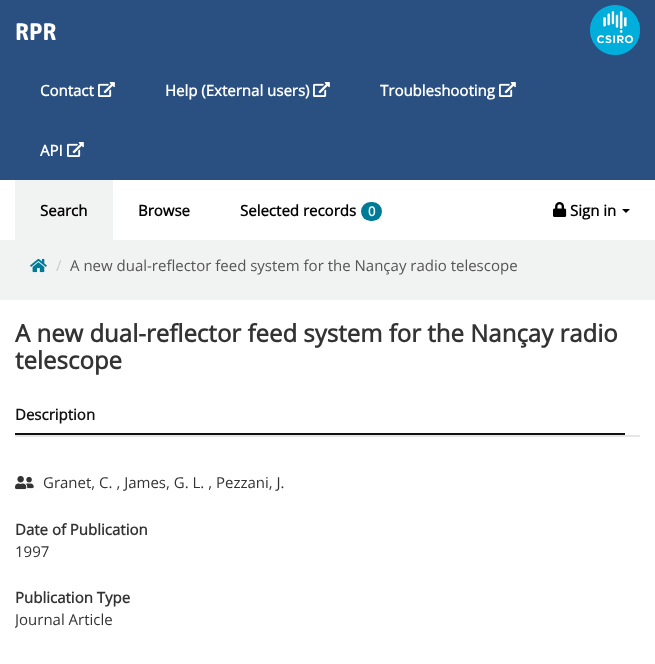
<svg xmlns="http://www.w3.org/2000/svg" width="655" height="664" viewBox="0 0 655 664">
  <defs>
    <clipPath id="clip1"><path d="M15 609h618v32H15z"/></clipPath>
  </defs>
  <rect width="100%" height="100%" fill="#fff"/>
  <path d="M0 0h655v180H0z" fill="#295081"/>
  <image x="590" y="5" width="50" height="50" href="img/1.png"/>
  <image x="98" y="82" width="17" height="15" href="img/2.png"/>
  <image x="313" y="82" width="17" height="15" href="img/2.png"/>
  <image x="499" y="82" width="17" height="15" href="img/2.png"/>
  <image x="67" y="142" width="17" height="15" href="img/2.png"/>
  <path d="M15 180h98v60H15z" fill="#f1f2f2"/>
  <rect x="361" y="202" width="21" height="19" rx="9.5" fill="#007b97"/>
  <image x="553" y="202" width="14" height="15" href="img/3.png"/>
  <path d="M622 209H630L626 213Z" fill="#000"/>
  <path d="M0 240h655v60H0z" fill="#f1f2f2"/>
  <image x="30" y="258" width="17" height="15" href="img/4.png"/>
  <path d="M15 433h610v2H15z" fill="#111"/>
  <path d="M15 435h625v2H15z" fill="#e6e6e6"/>
  <image x="15" y="476" width="19" height="14" href="img/5.png"/>
  <text x="15" y="40" font-family="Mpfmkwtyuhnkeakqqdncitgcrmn" font-size="24" font-weight="bold" fill="#fff">RPR</text>
  <g font-family="Open Sans" font-size="15" font-weight="bold" fill="#fff">
    <text x="40" y="96">Contact</text>
    <text x="165" y="96">Help (External users)</text>
    <text x="380" y="96">Troubleshooting</text>
    <text x="40" y="156">API</text>
  </g>
  <g font-family="Open Sans" font-size="15" font-weight="bold" fill="#000">
    <text x="40" y="216">Search</text>
    <text x="138" y="216">Browse</text>
    <text x="240" y="216">Selected records</text>
  </g>
  <text x="368" y="216" font-family="Open Sans" font-size="13" font-weight="bold" fill="#fff">0</text>
  <text x="570" y="216" font-family="Open Sans" font-size="15" font-weight="bold" fill="#000">Sign in</text>
  <text x="56" y="271" font-family="Open Sans" font-size="15" fill="#ccc">/</text>
  <text x="70" y="271" font-family="Open Sans" font-size="15" fill="#555">A new dual-reflector feed system for the Nançay radio telescope</text>
  <g font-family="Open Sans" font-size="24" font-weight="bold" fill="#333">
    <text x="15" y="342">A new dual-reflector feed system for the Nançay radio</text>
    <text x="15" y="369">telescope</text>
  </g>
  <text x="15" y="420" font-family="Open Sans" font-size="15" font-weight="bold" fill="#111">Description</text>
  <text x="43" y="488" font-family="Open Sans" font-size="15" fill="#333">Granet, C. , James, G. L. , Pezzani, J.</text>
  <text x="15" y="535" font-family="Open Sans" font-size="15" font-weight="bold" fill="#333">Date of Publication</text>
  <text x="15" y="557" font-family="Open Sans" font-size="15" fill="#333">1997</text>
  <text x="15" y="603" font-family="Open Sans" font-size="15" font-weight="bold" fill="#333">Publication Type</text>
  <g clip-path="url(#clip1)">
    <text x="15" y="625" font-family="Open Sans" font-size="15" fill="#333">Journal Article</text>
  </g>
</svg>
